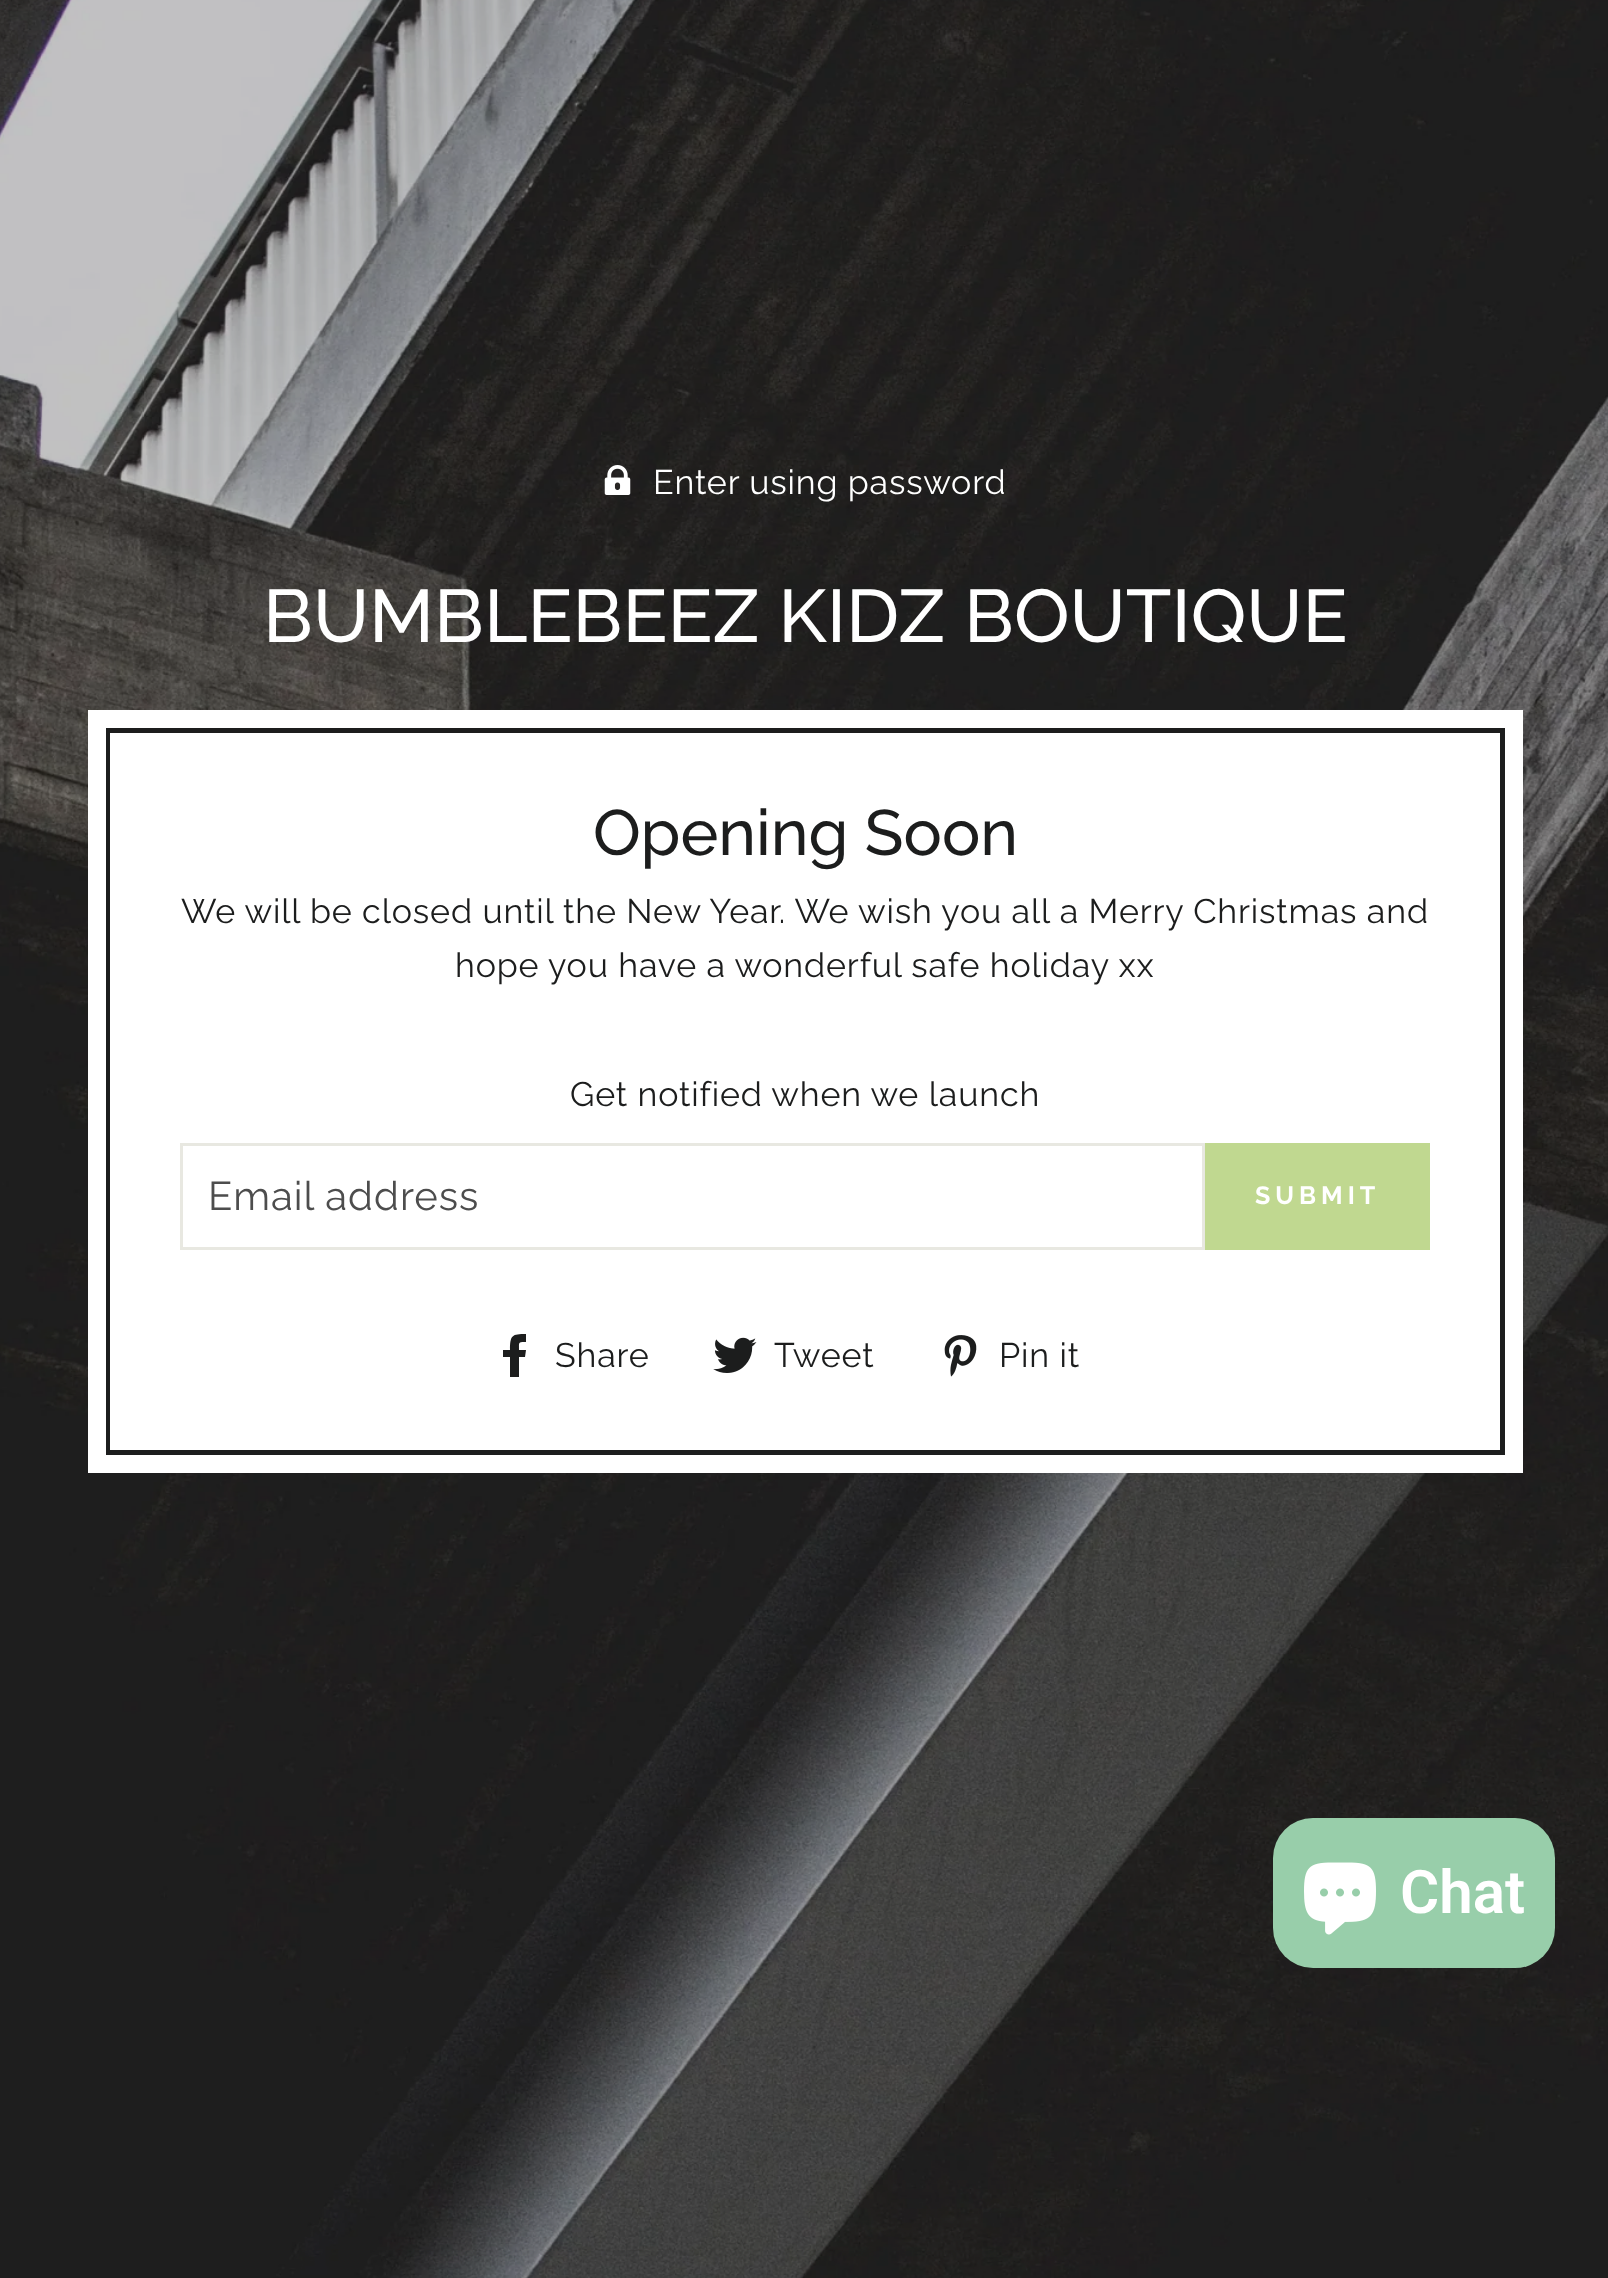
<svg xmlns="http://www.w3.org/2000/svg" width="1608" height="2278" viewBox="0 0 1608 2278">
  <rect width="100%" height="100%" fill="#fff"/>
  <image x="0" y="0" width="1608" height="2278" href="img/1.png"/>
  <image x="604" y="465" width="27" height="30" href="img/2.png"/>
  <path d="M107.5 730.5h1395v722H107.5z" fill="#fff" stroke="#1c1d1d" stroke-width="5"/>
  <path d="M97 719h1417v745H97z" fill="none" stroke="#fff" stroke-width="18"/>
  <path d="M181.5 1144.5h1022v104H181.5z" fill="none" stroke="#e8e8e1" stroke-width="3"/>
  <path d="M1205 1143h225v107H1205z" fill="#c0d890"/>
  <path d="M519 1377V1357H525L526 1350H519C519 1342 518 1342 526 1342V1334C512 1334 510 1335 510 1350H503V1357H510V1377Z" fill="#1c1d1d"/>
  <image x="713" y="1337" width="44" height="36" href="img/3.png"/>
  <image x="944" y="1335" width="33" height="42" href="img/4.png"/>
  <rect x="1273" y="1818" width="282" height="150" rx="40" fill="#98ceaa"/>
  <image x="1304" y="1862" width="72" height="73" href="img/5.png"/>
  <text x="653" y="494" font-family="Raleway" font-size="34" letter-spacing="0.85" fill="#fff">Enter using password</text>
  <text x="263" y="642" font-family="Raleway" font-size="74.4" font-weight="500" fill="#fff">BUMBLEBEEZ KIDZ BOUTIQUE</text>
  <text x="593" y="855" font-family="Raleway" font-size="64" font-weight="500" fill="#1c1d1d">Opening Soon</text>
  <g font-family="Raleway" font-size="34" letter-spacing="0.85" fill="#1c1d1d">
    <text x="181" y="923">We will be closed until the New Year. We wish you all a Merry Christmas and</text>
    <text x="455" y="977">hope you have a wonderful safe holiday xx</text>
    <text x="570" y="1106">Get notified when we launch</text>
  </g>
  <text x="208" y="1210" font-family="Raleway" font-size="40" letter-spacing="1" fill="#4d4d4d">Email address</text>
  <text x="1255" y="1204" font-family="Raleway" font-size="25" font-weight="bold" letter-spacing="5" fill="#fff">SUBMIT</text>
  <g font-family="Raleway" font-size="34" letter-spacing="0.85" fill="#1c1d1d">
    <text x="555" y="1367">Share</text>
    <text x="774" y="1367">Tweet</text>
    <text x="999" y="1367">Pin it</text>
  </g>
  <text x="1400" y="1913" font-family="Roboto" font-size="60" font-weight="600" fill="#fff">Chat</text>
</svg>
